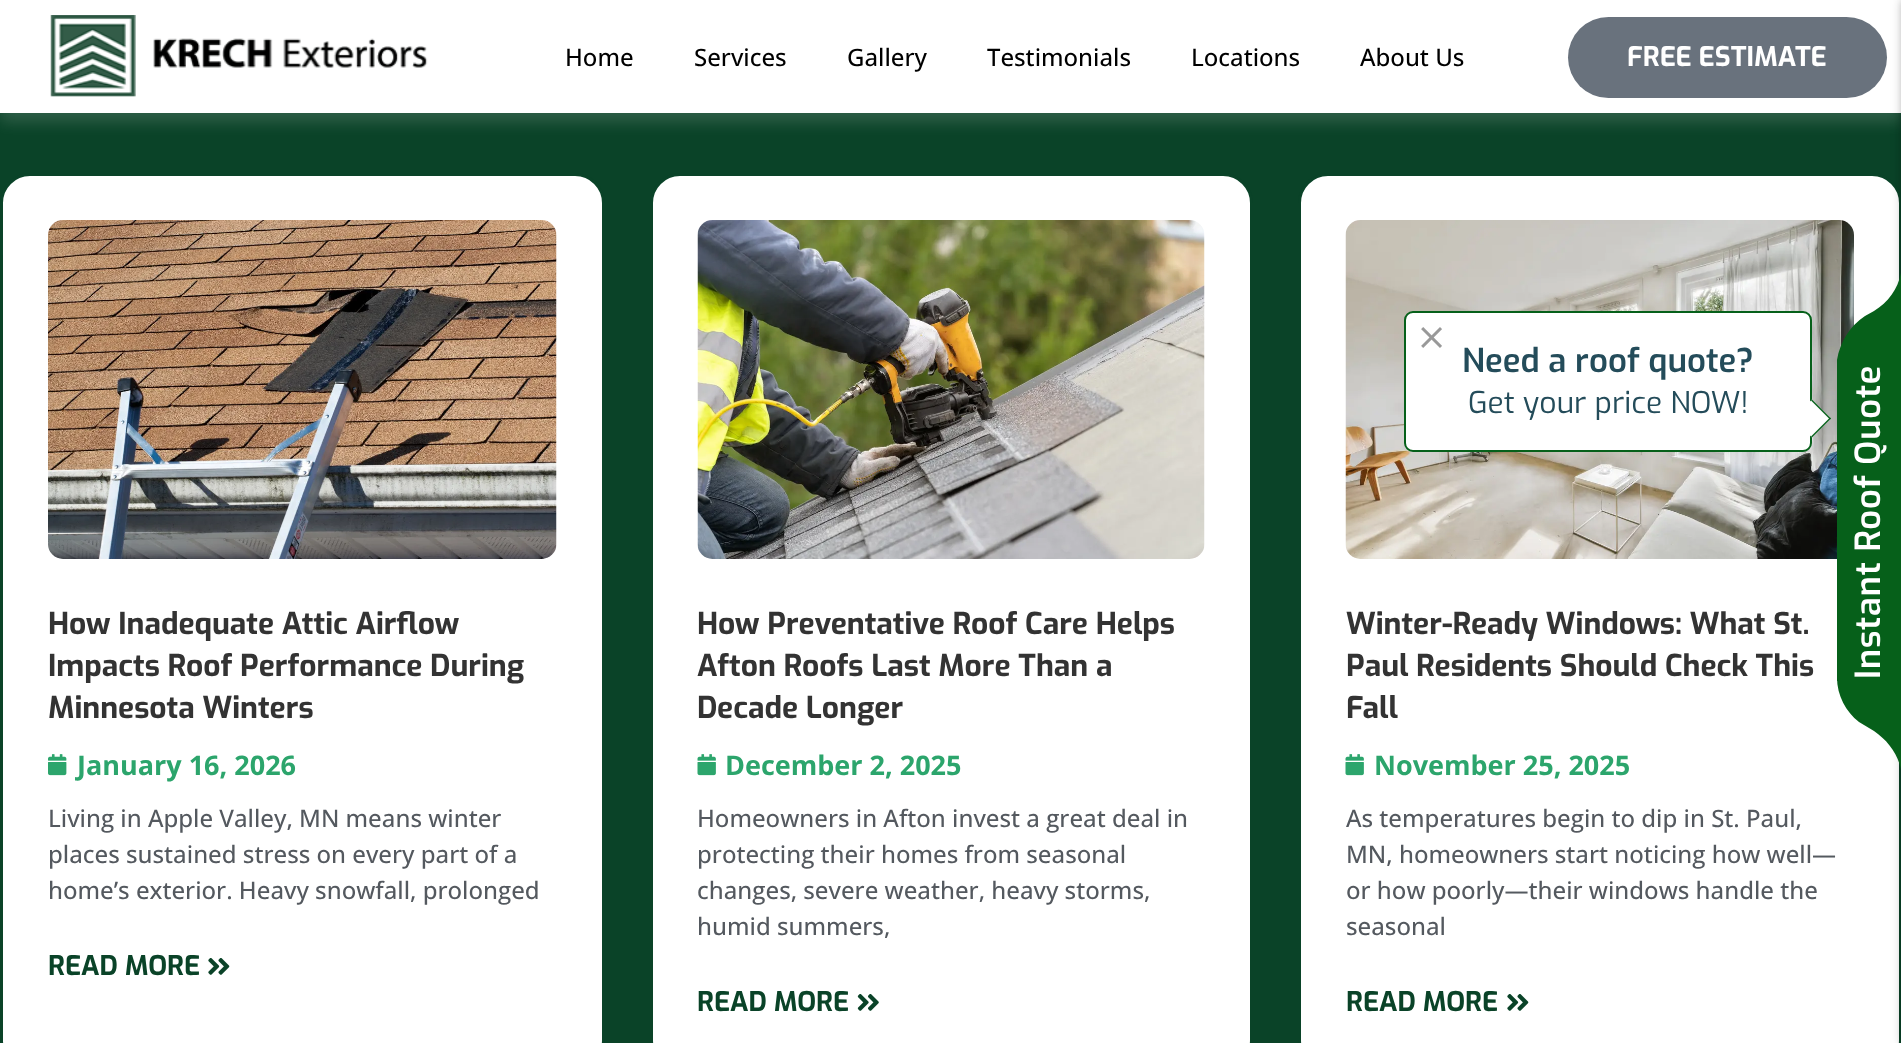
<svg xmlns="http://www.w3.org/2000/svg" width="1901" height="1043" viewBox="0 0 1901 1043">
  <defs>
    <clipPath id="clip1"><path d="M1436 387h345v33H1436z"/></clipPath>
  </defs>
  <rect width="100%" height="100%" fill="#0a4328"/>
  <path d="M0 9h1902v113H0z" fill="#ffffff26" filter="blur(7.5px)"/>
  <path d="M0 0h1901v113H0z" fill="#fff"/>
  <image x="50" y="15" width="378" height="82" href="img/1.png"/>
  <rect x="1568" y="17" width="319" height="81" rx="40.5" fill="#69727d"/>
  <rect x="1299.5" y="174.5" width="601" height="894" rx="28.5" fill="#fff" stroke="#0a4328" stroke-width="3"/>
  <path d="M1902 0h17v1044H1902z" fill="#00000033" filter="blur(6px)"/>
  <path d="M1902 0h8v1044H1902z" fill="#00000024" filter="blur(3px)"/>
  <image x="1345" y="220" width="509" height="339" href="img/9.png"/>
  <rect x="1405" y="312" width="406" height="139" rx="8" fill="#fff" stroke="#06601a" stroke-width="2"/>
  <image x="1421" y="327" width="21" height="21" href="img/2.png"/>
  <path d="M1812 399.5L1831 418.5L1812 437.5L1793 418.5Z" fill="#fff"/>
  <path d="M1812 399.5L1831 418.5L1830 419.5L1811 400.5Z" fill="#06601a"/>
  <path d="M1830 417.5L1831 418.5L1812 437.5L1811 436.5Z" fill="#06601a"/>
  <path d="M1837 365h64v316H1837z" fill="#06601a"/>
  <path d="M1837 365H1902V262C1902 283 1891 301 1874 311L1865 316C1850 326 1840 342 1837 360Z" fill="#06601a"/>
  <path d="M1837 678H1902V780C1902 759 1890 742 1874 731L1859 722C1846 712 1837 695 1837 678Z" fill="#06601a"/>
  <rect x="1.5" y="174.5" width="602" height="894" rx="28.5" fill="#fff" stroke="#0a4328" stroke-width="3"/>
  <image x="48" y="220" width="509" height="339" href="img/3.png"/>
  <image x="48" y="754" width="19" height="22" href="img/4.png"/>
  <image x="208" y="958" width="22" height="17" href="img/5.png"/>
  <rect x="651.5" y="174.5" width="600" height="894" rx="28.5" fill="#fff" stroke="#0a4328" stroke-width="3"/>
  <image x="697" y="220" width="508" height="339" href="img/6.png"/>
  <image x="697" y="754" width="19" height="22" href="img/7.png"/>
  <image x="857" y="994" width="22" height="17" href="img/8.png"/>
  <image x="1345" y="754" width="19" height="22" href="img/7.png"/>
  <image x="1507" y="994" width="22" height="17" href="img/5.png"/>
  <g font-family="Open Sans" font-size="24" font-weight="500" fill="#000">
    <text x="565" y="66">Home</text>
    <text x="694" y="66">Services</text>
    <text x="847" y="66">Gallery</text>
    <text x="987" y="66">Testimonials</text>
    <text x="1191" y="66">Locations</text>
    <text x="1360" y="66">About Us</text>
  </g>
  <text x="1627" y="66" font-family="Exo" font-size="27" font-weight="bold" fill="#fff">FREE ESTIMATE</text>
  <text x="1462" y="372" font-family="Exo" font-size="33" font-weight="600" fill="#244c5a">Need a roof quote?</text>
  <g clip-path="url(#clip1)">
    <text x="1468" y="413" font-family="Exo" font-size="30" fill="#244c5a">Get your price NOW!</text>
  </g>
  <text x="1880" y="679" transform="rotate(-90 1880 679)" font-family="Exo" font-size="34.5" font-weight="600" letter-spacing="0.75" fill="#fff">Instant Roof Quote</text>
  <g font-family="Exo" font-size="30" font-weight="bold" fill="#333">
    <text x="48" y="634">How Inadequate Attic Airflow</text>
    <text x="48" y="676">Impacts Roof Performance During</text>
    <text x="48" y="718">Minnesota Winters</text>
  </g>
  <text x="77" y="775" font-family="Open Sans" font-size="27" font-weight="bold" fill="#2ca56c">January 16, 2026</text>
  <g font-family="Open Sans" font-size="24" font-weight="500" fill="#54595f">
    <text x="48" y="827">Living in Apple Valley, MN means winter</text>
    <text x="48" y="863">places sustained stress on every part of a</text>
    <text x="48" y="899">home’s exterior. Heavy snowfall, prolonged</text>
  </g>
  <text x="48" y="975" font-family="Exo" font-size="27" font-weight="bold" fill="#0a4328">READ MORE</text>
  <g font-family="Exo" font-size="30" font-weight="bold" fill="#333">
    <text x="697" y="634">How Preventative Roof Care Helps</text>
    <text x="697" y="676">Afton Roofs Last More Than a</text>
    <text x="697" y="718">Decade Longer</text>
  </g>
  <text x="725" y="775" font-family="Open Sans" font-size="27" font-weight="bold" fill="#2ca56c">December 2, 2025</text>
  <g font-family="Open Sans" font-size="24" font-weight="500" fill="#54595f">
    <text x="697" y="827">Homeowners in Afton invest a great deal in</text>
    <text x="697" y="863">protecting their homes from seasonal</text>
    <text x="697" y="899">changes, severe weather, heavy storms,</text>
    <text x="697" y="935">humid summers,</text>
  </g>
  <text x="697" y="1011" font-family="Exo" font-size="27" font-weight="bold" fill="#0a4328">READ MORE</text>
  <g font-family="Exo" font-size="30" font-weight="bold" fill="#333">
    <text x="1346" y="634">Winter-Ready Windows: What St.</text>
    <text x="1346" y="676">Paul Residents Should Check This</text>
    <text x="1346" y="718">Fall</text>
  </g>
  <text x="1374" y="775" font-family="Open Sans" font-size="27" font-weight="bold" fill="#2ca56c">November 25, 2025</text>
  <g font-family="Open Sans" font-size="24" font-weight="500" fill="#54595f">
    <text x="1346" y="827">As temperatures begin to dip in St. Paul,</text>
    <text x="1346" y="863">MN, homeowners start noticing how well—</text>
    <text x="1346" y="899">or how poorly—their windows handle the</text>
    <text x="1346" y="935">seasonal</text>
  </g>
  <text x="1346" y="1011" font-family="Exo" font-size="27" font-weight="bold" fill="#0a4328">READ MORE</text>
</svg>
